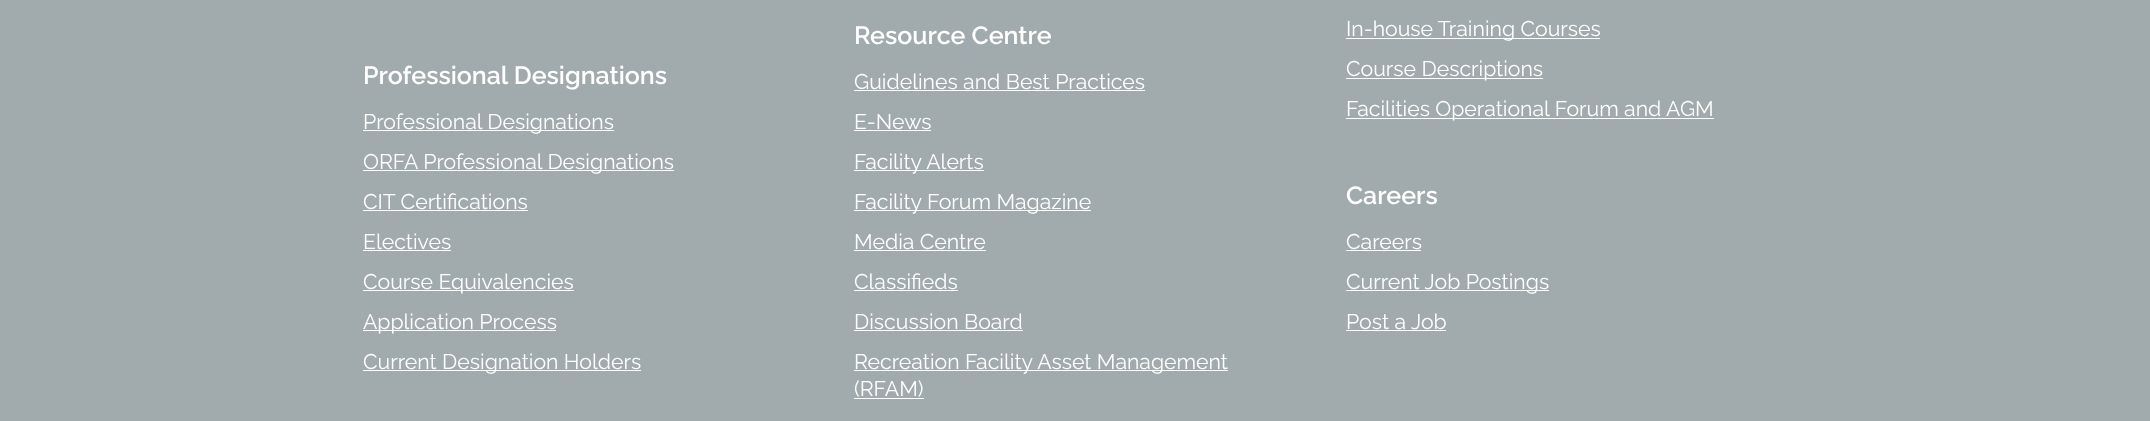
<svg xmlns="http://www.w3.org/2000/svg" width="2150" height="421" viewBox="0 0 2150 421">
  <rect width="100%" height="100%" fill="#a1aaac"/>
  <path d="M363 130h251v1H363z" fill="#fff"/>
  <path d="M363 170h311v1H363z" fill="#fff"/>
  <path d="M363 210h165v1H363z" fill="#fff"/>
  <path d="M363 250h88v1H363z" fill="#fff"/>
  <path d="M363 290h211v1H363z" fill="#fff"/>
  <path d="M363 330h193v1H363z" fill="#fff"/>
  <path d="M363 370h278v1H363z" fill="#fff"/>
  <path d="M854 90h291v1H854z" fill="#fff"/>
  <path d="M854 130h77v1H854z" fill="#fff"/>
  <path d="M854 170h130v1H854z" fill="#fff"/>
  <path d="M854 210h237v1H854z" fill="#fff"/>
  <path d="M854 250h132v1H854z" fill="#fff"/>
  <path d="M854 290h104v1H854z" fill="#fff"/>
  <path d="M854 330h169v1H854z" fill="#fff"/>
  <path d="M854 370h374v1H854z" fill="#fff"/>
  <path d="M854 398h70v1H854z" fill="#fff"/>
  <path d="M1346 38h254v1H1346z" fill="#fff"/>
  <path d="M1346 78h197v1H1346z" fill="#fff"/>
  <path d="M1346 118h368v1H1346z" fill="#fff"/>
  <path d="M1346 250h75v1H1346z" fill="#fff"/>
  <path d="M1346 290h203v1H1346z" fill="#fff"/>
  <path d="M1346 330h100v1H1346z" fill="#fff"/>
  <text x="363" y="84" font-family="Raleway" font-size="25" font-weight="600" fill="#fff">Professional Designations</text>
  <g font-family="Raleway" font-size="21.25" fill="#fff">
    <text x="363" y="129">Professional Designations</text>
    <text x="363" y="169">ORFA Professional Designations</text>
    <text x="363" y="209">CIT Certifications</text>
    <text x="363" y="249">Electives</text>
    <text x="363" y="289">Course Equivalencies</text>
    <text x="363" y="329">Application Process</text>
    <text x="363" y="369">Current Designation Holders</text>
  </g>
  <text x="854" y="44" font-family="Raleway" font-size="25" font-weight="600" fill="#fff">Resource Centre</text>
  <g font-family="Raleway" font-size="21.25" fill="#fff">
    <text x="854" y="89">Guidelines and Best Practices</text>
    <text x="854" y="129">E-News</text>
    <text x="854" y="169">Facility Alerts</text>
    <text x="854" y="209">Facility Forum Magazine</text>
    <text x="854" y="249">Media Centre</text>
    <text x="854" y="289">Classifieds</text>
    <text x="854" y="329">Discussion Board</text>
    <text x="854" y="369">Recreation Facility Asset Management</text>
    <text x="854" y="396">(RFAM)</text>
    <text x="1346" y="36">In-house Training Courses</text>
    <text x="1346" y="76">Course Descriptions</text>
    <text x="1346" y="116">Facilities Operational Forum and AGM</text>
  </g>
  <text x="1346" y="204" font-family="Raleway" font-size="25" font-weight="600" fill="#fff">Careers</text>
  <g font-family="Raleway" font-size="21.25" fill="#fff">
    <text x="1346" y="249">Careers</text>
    <text x="1346" y="289">Current Job Postings</text>
    <text x="1346" y="329">Post a Job</text>
  </g>
</svg>
